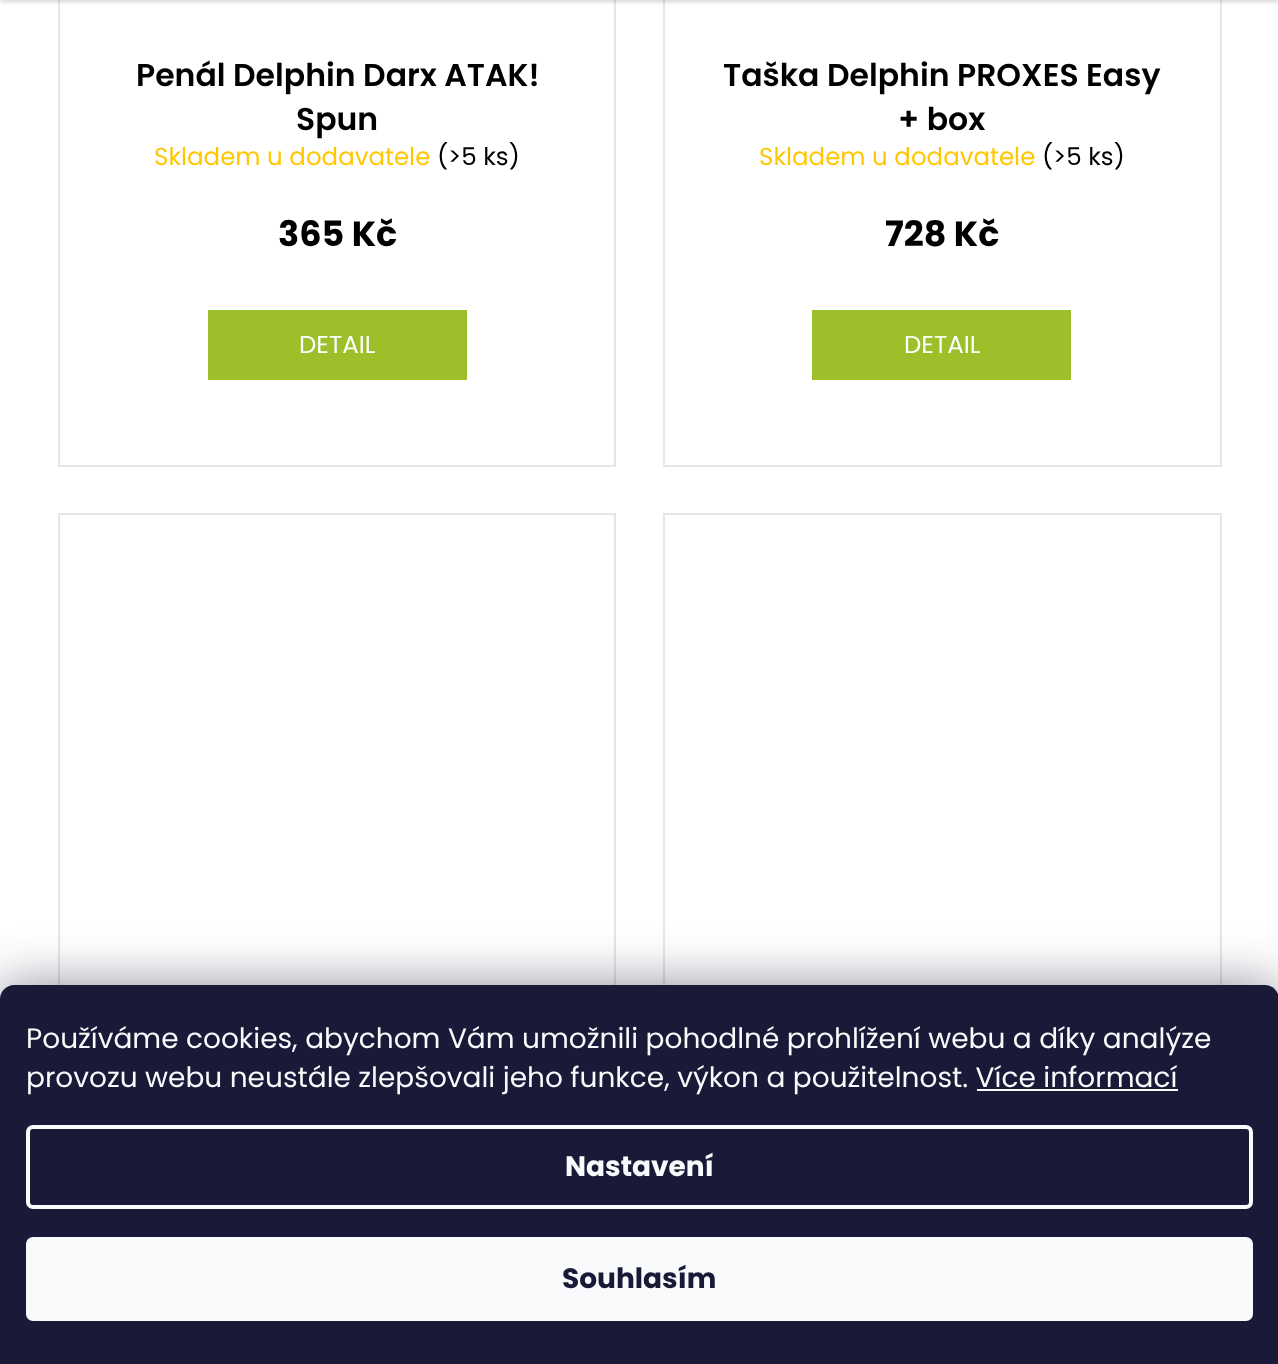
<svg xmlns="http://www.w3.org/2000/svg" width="1278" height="1364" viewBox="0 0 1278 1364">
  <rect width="100%" height="100%" fill="#fff"/>
  <path d="M59 -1h556v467H59z" fill="none" stroke="#e6e6e6" stroke-width="2"/>
  <path d="M664 -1h557v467H664z" fill="none" stroke="#e6e6e6" stroke-width="2"/>
  <path d="M0 -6h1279v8H0z" fill="#00000029" filter="blur(2px)"/>
  <path d="M208 310h259v70H208z" fill="#9dbf2a"/>
  <path d="M812 310h259v70H812z" fill="#9dbf2a"/>
  <path d="M59 514h556v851H59z" fill="none" stroke="#e6e6e6" stroke-width="2"/>
  <path d="M664 514h557v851H664z" fill="none" stroke="#e6e6e6" stroke-width="2"/>
  <rect y="985" width="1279" height="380" rx="14" fill="#1b193980" filter="blur(26px)"/>
  <path d="M14 985H1265C1272.5 985 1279 991.5 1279 999V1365H0V999C0 991.5 6.5 985 14 985Z" fill="#1a1937"/>
  <path d="M977 1089h201v2H977z" fill="#f8fafb"/>
  <rect x="28" y="1127" width="1223" height="80" rx="5" fill="none" stroke="#f8fafb" stroke-width="4"/>
  <rect x="26" y="1237" width="1227" height="84" rx="7" fill="#f8fafb"/>
  <g font-family="Poppins" font-size="31.5" font-weight="600" fill="#000">
    <text x="136" y="86">Penál Delphin Darx ATAK!</text>
    <text x="296" y="130">Spun</text>
  </g>
  <text x="154" y="165" font-family="Poppins" font-size="24.5" fill="#ffc702">Skladem u dodavatele</text>
  <text x="437" y="165" font-family="Poppins" font-size="24.5" fill="#000">(&gt;5 ks)</text>
  <text x="278" y="246" font-family="Poppins" font-size="35" font-weight="bold" fill="#000">365 Kč</text>
  <text x="299" y="353" font-family="Poppins" font-size="24.5" fill="#fff">DETAIL</text>
  <g font-family="Poppins" font-size="31.5" font-weight="600" fill="#000">
    <text x="723" y="86">Taška Delphin PROXES Easy</text>
    <text x="898" y="130">+ box</text>
  </g>
  <text x="759" y="165" font-family="Poppins" font-size="24.5" fill="#ffc702">Skladem u dodavatele</text>
  <text x="1042" y="165" font-family="Poppins" font-size="24.5" fill="#000">(&gt;5 ks)</text>
  <text x="885" y="246" font-family="Poppins" font-size="35" font-weight="bold" fill="#000">728 Kč</text>
  <text x="904" y="353" font-family="Poppins" font-size="24.5" fill="#fff">DETAIL</text>
  <g font-family="Poppins" font-size="28" fill="#f8fafb">
    <text x="26" y="1048">Používáme cookies, abychom Vám umožnili pohodlné prohlížení webu a díky analýze</text>
    <text x="26" y="1087">provozu webu neustále zlepšovali jeho funkce, výkon a použitelnost. Více informací</text>
  </g>
  <text x="565" y="1176" font-family="Poppins" font-size="28" font-weight="bold" fill="#f8fafb">Nastavení</text>
  <text x="562" y="1288" font-family="Poppins" font-size="28" font-weight="bold" fill="#1a1937">Souhlasím</text>
</svg>
